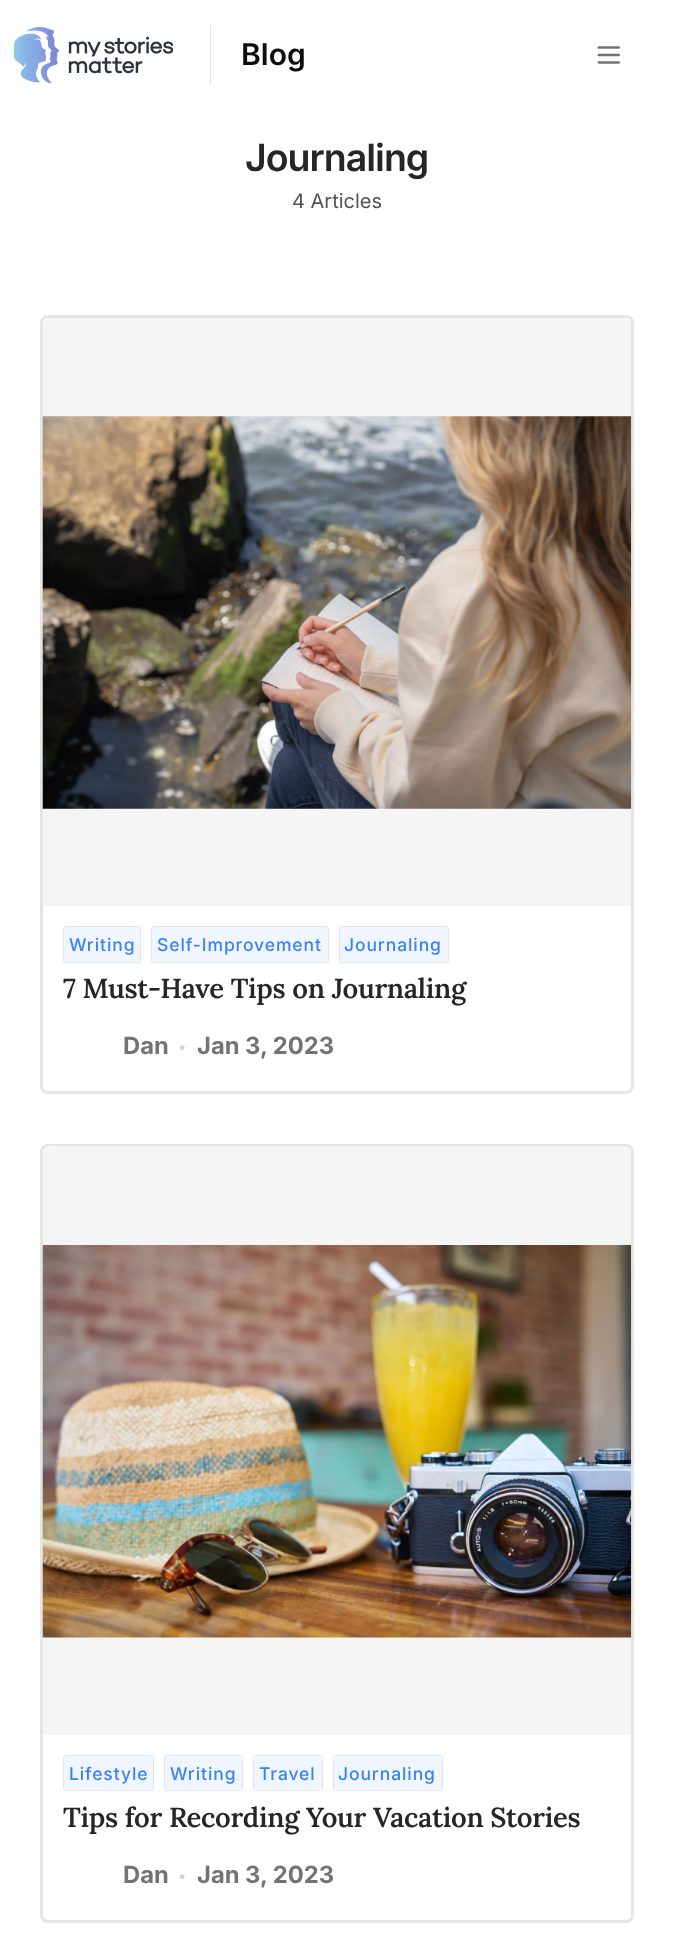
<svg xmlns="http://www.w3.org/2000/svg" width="673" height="1940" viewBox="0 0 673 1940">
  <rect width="100%" height="100%" fill="#fff"/>
  <image x="14" y="27" width="159" height="56" href="img/1.png"/>
  <path d="M210 25h1v60H210z" fill="#e2e4e9"/>
  <image x="597" y="46" width="23" height="18" href="img/2.png"/>
  <rect x="41.5" y="316.5" width="591" height="776" rx="6.5" fill="none" stroke="#e5e5e5" stroke-width="3"/>
  <path d="M51 318H623C627.5 318 631 321.5 631 326V906H43V326C43 321.5 46.5 318 51 318Z" fill="#f5f5f5"/>
  <image x="42" y="416" width="590" height="393" href="img/3.png"/>
  <rect x="63.5" y="926.5" width="77" height="36" rx="2" fill="#eff6ff" stroke="#e5e5e5"/>
  <rect x="151.5" y="926.5" width="177" height="36" rx="2" fill="#eff6ff" stroke="#e5e5e5"/>
  <rect x="339.5" y="926.5" width="109" height="36" rx="2" fill="#eff6ff" stroke="#e5e5e5"/>
  <rect x="41.5" y="1145.5" width="591" height="776" rx="6.5" fill="none" stroke="#e5e5e5" stroke-width="3"/>
  <path d="M51 1146H623C627.5 1146 631 1149.5 631 1154V1735H43V1154C43 1149.5 46.5 1146 51 1146Z" fill="#f5f5f5"/>
  <image x="42" y="1245" width="590" height="393" href="img/4.png"/>
  <rect x="63.5" y="1755.5" width="90" height="35" rx="2" fill="#eff6ff" stroke="#e5e5e5"/>
  <rect x="164.5" y="1755.5" width="78" height="35" rx="2" fill="#eff6ff" stroke="#e5e5e5"/>
  <rect x="253.5" y="1755.5" width="69" height="35" rx="2" fill="#eff6ff" stroke="#e5e5e5"/>
  <rect x="333.5" y="1755.5" width="109" height="35" rx="2" fill="#eff6ff" stroke="#e5e5e5"/>
  <text x="241" y="65" font-family="Inter" font-size="30" font-weight="600" fill="#0b0c0f">Blog</text>
  <text x="245" y="171" font-family="Inter" font-size="37.5" font-weight="600" letter-spacing="-1" fill="#262626">Journaling</text>
  <text x="292" y="208" font-family="Inter" font-size="20" fill="#525252">4 Articles</text>
  <g font-family="Inter" font-size="17.5" font-weight="500" letter-spacing="0.9" fill="#3b82f6">
    <text x="69" y="951">Writing</text>
    <text x="157" y="951">Self-Improvement</text>
    <text x="344" y="951">Journaling</text>
  </g>
  <text x="63" y="998" font-family="Lora" font-size="27.5" font-weight="600" letter-spacing="-0.3" fill="#262626">7 Must-Have Tips on Journaling</text>
  <text x="123" y="1054" font-family="Inter" font-size="23.75" font-weight="bold" fill="#737373">Dan</text>
  <text x="178" y="1052" font-family="Inter" font-size="15" fill="#d4d4d4">•</text>
  <text x="197" y="1054" font-family="Inter" font-size="23.75" font-weight="bold" fill="#737373">Jan 3, 2023</text>
  <g font-family="Inter" font-size="17.5" font-weight="500" letter-spacing="0.9" fill="#3b82f6">
    <text x="69" y="1780">Lifestyle</text>
    <text x="170" y="1780">Writing</text>
    <text x="259" y="1780">Travel</text>
    <text x="338" y="1780">Journaling</text>
  </g>
  <text x="63" y="1827" font-family="Lora" font-size="27.5" font-weight="600" letter-spacing="-0.3" fill="#262626">Tips for Recording Your Vacation Stories</text>
  <text x="123" y="1883" font-family="Inter" font-size="23.75" font-weight="bold" fill="#737373">Dan</text>
  <text x="178" y="1881" font-family="Inter" font-size="15" fill="#d4d4d4">•</text>
  <text x="197" y="1883" font-family="Inter" font-size="23.75" font-weight="bold" fill="#737373">Jan 3, 2023</text>
</svg>
